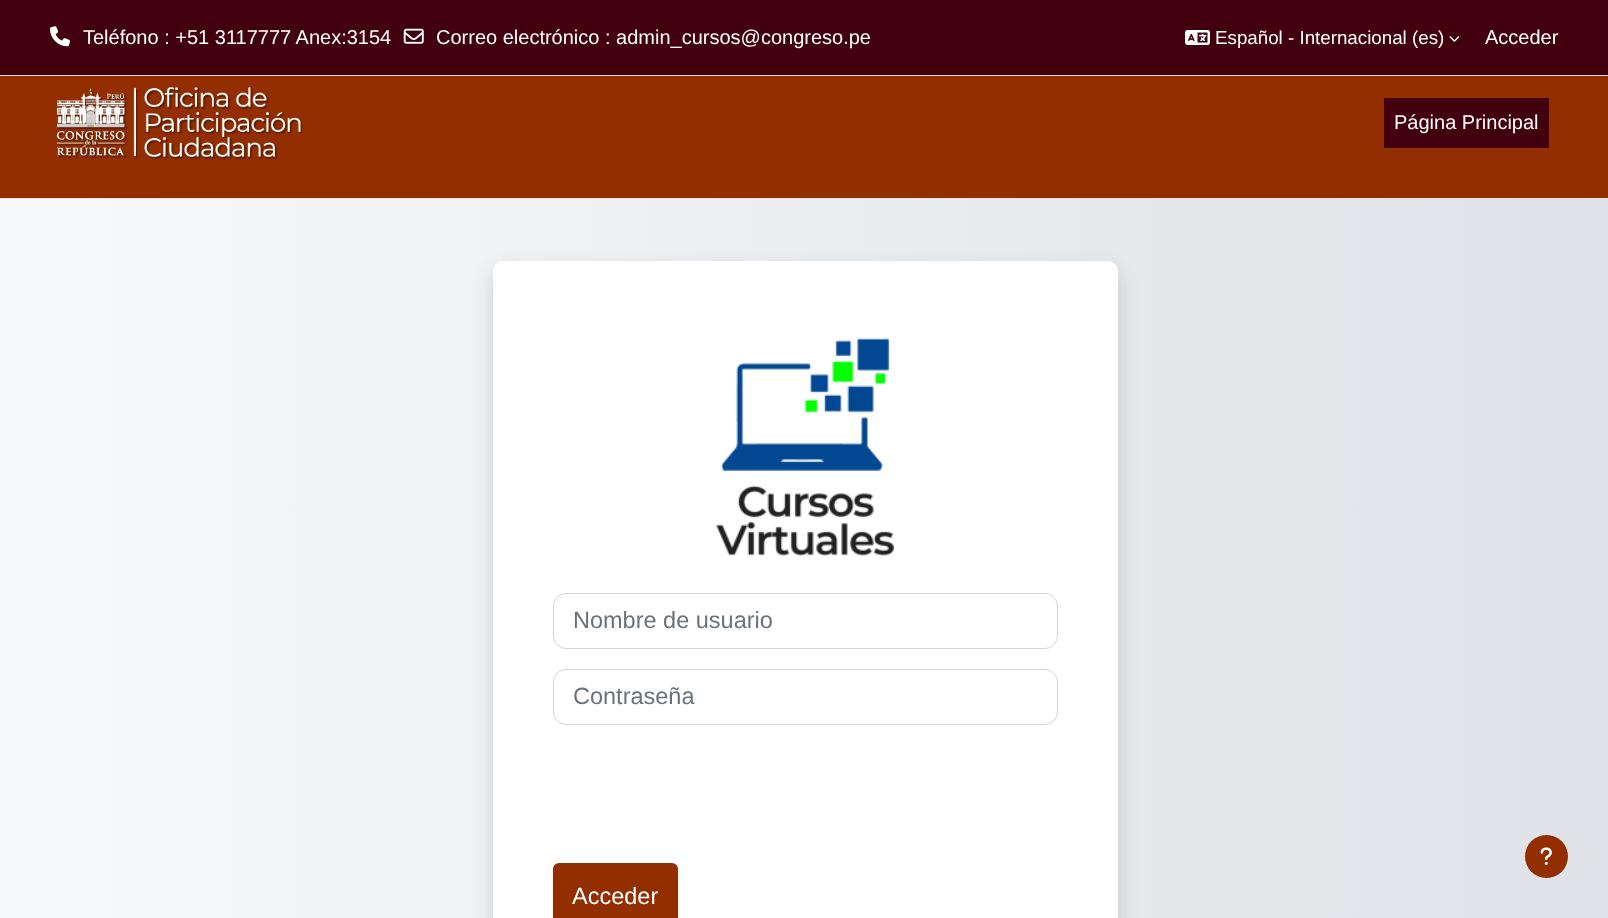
<svg xmlns="http://www.w3.org/2000/svg" width="1608" height="918" viewBox="0 0 1608 918">
  <defs>
    <linearGradient id="g1" gradientUnits="userSpaceOnUse" x1="0" y1="859" x2="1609" y2="859"><stop offset="0" stop-color="#f8f9fa"/><stop offset="1" stop-color="#dee2e6"/></linearGradient>
  </defs>
  <rect width="100%" height="100%" fill="#932e00"/>
  <path d="M0 0h1608v75H0z" fill="#42000e"/>
  <path d="M0 75h1608v1H0z" fill="#e8e3e3"/>
  <image x="50" y="26" width="20" height="21" href="img/1.png"/>
  <image x="403" y="28" width="21" height="16" href="img/2.png"/>
  <image x="1185" y="30" width="25" height="15" href="img/3.png"/>
  <image x="1449" y="36" width="11" height="6" href="img/4.png"/>
  <path d="M0 198h1608v1H0z" fill="#e8e3e3"/>
  <image x="57" y="87" width="246" height="73" href="img/5.png"/>
  <path d="M1384 98h165v50H1384z" fill="#42000e"/>
  <path d="M0 199h1608v719H0z" fill="url(#g1)"/>
  <rect x="493" y="271" width="625" height="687" rx="10" fill="#00000026" filter="blur(10px)"/>
  <rect x="493" y="261" width="625" height="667" rx="10" fill="#fff"/>
  <image x="716" y="338" width="179" height="218" href="img/6.png"/>
  <rect x="553.5" y="593.5" width="504" height="55" rx="12.5" fill="none" stroke="#d5d5d5"/>
  <rect x="553.5" y="669.5" width="504" height="55" rx="12.5" fill="none" stroke="#d5d5d5"/>
  <rect x="553" y="863" width="125" height="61" rx="6" fill="#932e00"/>
  <circle cx="1546.5" cy="856.5" r="22" fill="#932e00" stroke="#eee"/>
  <image x="1540" y="847" width="12" height="18" href="img/7.png"/>
  <g font-family="Liberation Sans" font-size="20" fill="#fff">
    <text x="83" y="44">Teléfono : +51 3117777 Anex:3154</text>
    <text x="436" y="44">Correo electrónico : admin_cursos@congreso.pe</text>
  </g>
  <text x="1215" y="44" font-family="Liberation Sans" font-size="18.75" fill="#fff">Español - Internacional (es)</text>
  <g font-family="Liberation Sans" font-size="20" fill="#fff">
    <text x="1485" y="44">Acceder</text>
    <text x="1394" y="129">Página Principal</text>
  </g>
  <g font-family="Liberation Sans" font-size="23.5" fill="#6a737b">
    <text x="573" y="628">Nombre de usuario</text>
    <text x="573" y="704">Contraseña</text>
  </g>
  <text x="572" y="904" font-family="Liberation Sans" font-size="23.5" fill="#fff">Acceder</text>
</svg>
